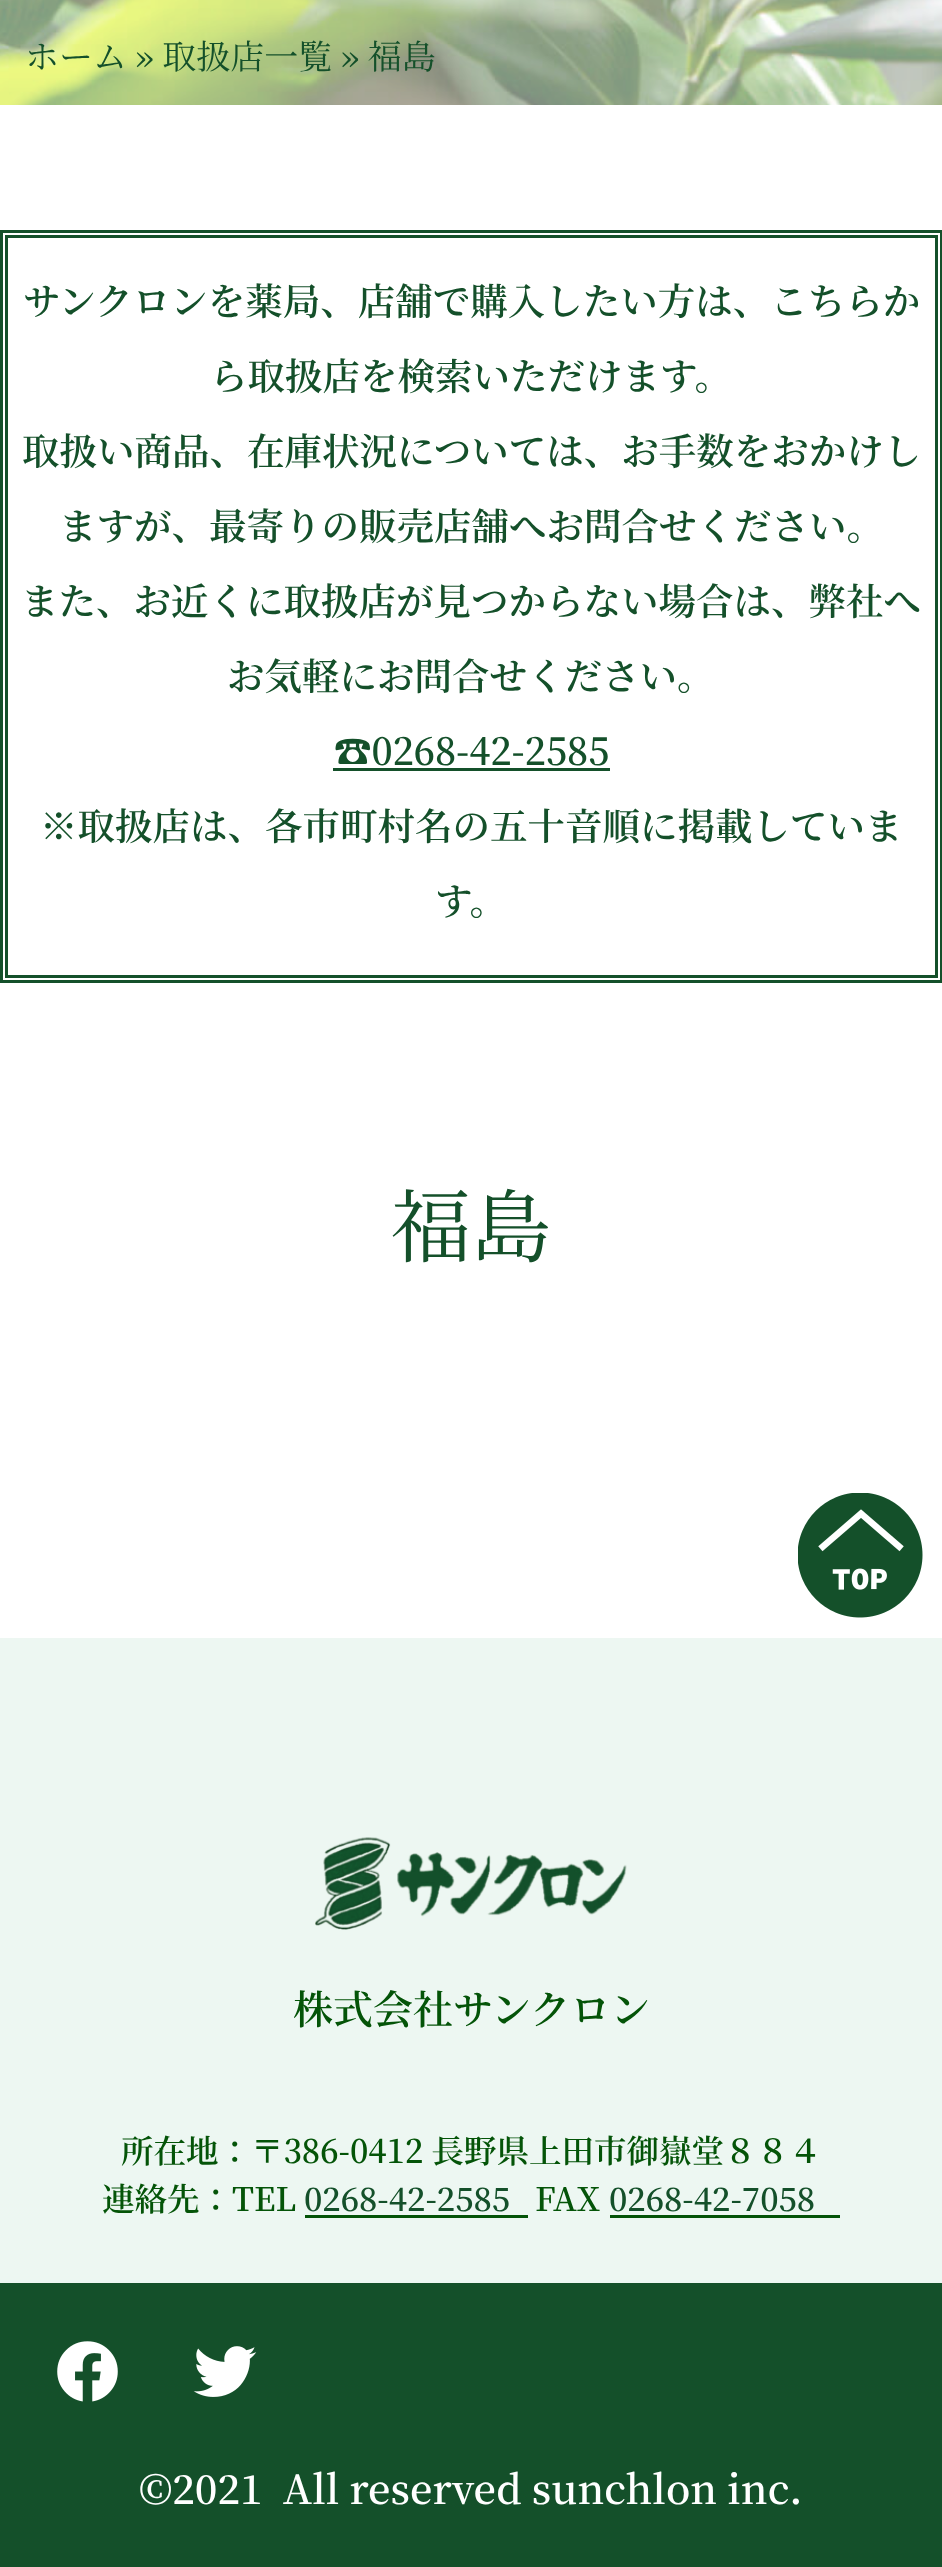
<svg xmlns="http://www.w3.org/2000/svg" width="942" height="2567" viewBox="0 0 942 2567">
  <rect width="100%" height="100%" fill="#fff"/>
  <image x="0" y="0" width="942" height="105" href="img/1.png"/>
  <path d="M1.5 231.5h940v750H1.5z" fill="none" stroke="#14502a" stroke-width="3"/>
  <path d="M6.5 236.5h930v740H6.5z" fill="none" stroke="#14502a" stroke-width="3"/>
  <path d="M333 768h277v3H333z" fill="#14502a"/>
  <image x="798" y="1493" width="125" height="125" href="img/2.png"/>
  <path d="M0 1638h942v645H0z" fill="#edf7f2"/>
  <image x="315" y="1837" width="312" height="93" href="img/3.png"/>
  <path d="M305 2215h223v3H305z" fill="#045408"/>
  <path d="M610 2215h230v3H610z" fill="#045408"/>
  <path d="M0 2283h942v284H0z" fill="#14502a"/>
  <image x="57" y="2341" width="61" height="61" href="img/4.png"/>
  <image x="193" y="2346" width="64" height="51" href="img/5.png"/>
  <text x="25" y="69" font-family="Noto Serif JP" font-size="34" fill="#14502a">ホーム » 取扱店一覧 » 福島</text>
  <g font-family="Noto Serif JP" font-size="37.5" font-weight="600" fill="#14502a">
    <text x="23" y="315">サンクロンを薬局、店舗で購入したい方は、こちらか</text>
    <text x="210" y="390">ら取扱店を検索いただけます。</text>
    <text x="22" y="465">取扱い商品、在庫状況については、お手数をおかけし</text>
    <text x="59" y="540">ますが、最寄りの販売店舗へお問合せください。</text>
    <text x="21" y="615">また、お近くに取扱店が見つからない場合は、弊社へ</text>
    <text x="227" y="690">お気軽にお問合せください。</text>
    <text x="334" y="765">☎︎0268-42-2585</text>
    <text x="40" y="840">※取扱店は、各市町村名の五十音順に掲載していま</text>
    <text x="435" y="915">す。</text>
  </g>
  <text x="391" y="1256" font-family="Noto Serif JP" font-size="80" fill="#14502a">福島</text>
  <text x="293" y="2024" font-family="Noto Serif JP" font-size="40" font-weight="600" fill="#045408">株式会社サンクロン</text>
  <g font-family="Noto Serif JP" font-size="32.5" font-weight="600" fill="#045408">
    <text x="121" y="2163">所在地：〒386-0412 長野県上田市御嶽堂８８４</text>
    <text x="102" y="2211">連絡先：TEL</text>
  </g>
  <text x="304" y="2211" font-family="Noto Serif JP" font-size="32.5" font-weight="600" fill="#14502a">0268-42-2585</text>
  <text x="535" y="2211" font-family="Noto Serif JP" font-size="32.5" font-weight="600" fill="#045408">FAX</text>
  <text x="609" y="2211" font-family="Noto Serif JP" font-size="32.5" font-weight="600" fill="#14502a">0268-42-7058</text>
  <text x="139" y="2504" font-family="Noto Serif JP" font-size="40" font-weight="600" fill="#fff" xml:space="preserve">©︎2021  All reserved sunchlon inc.</text>
</svg>
